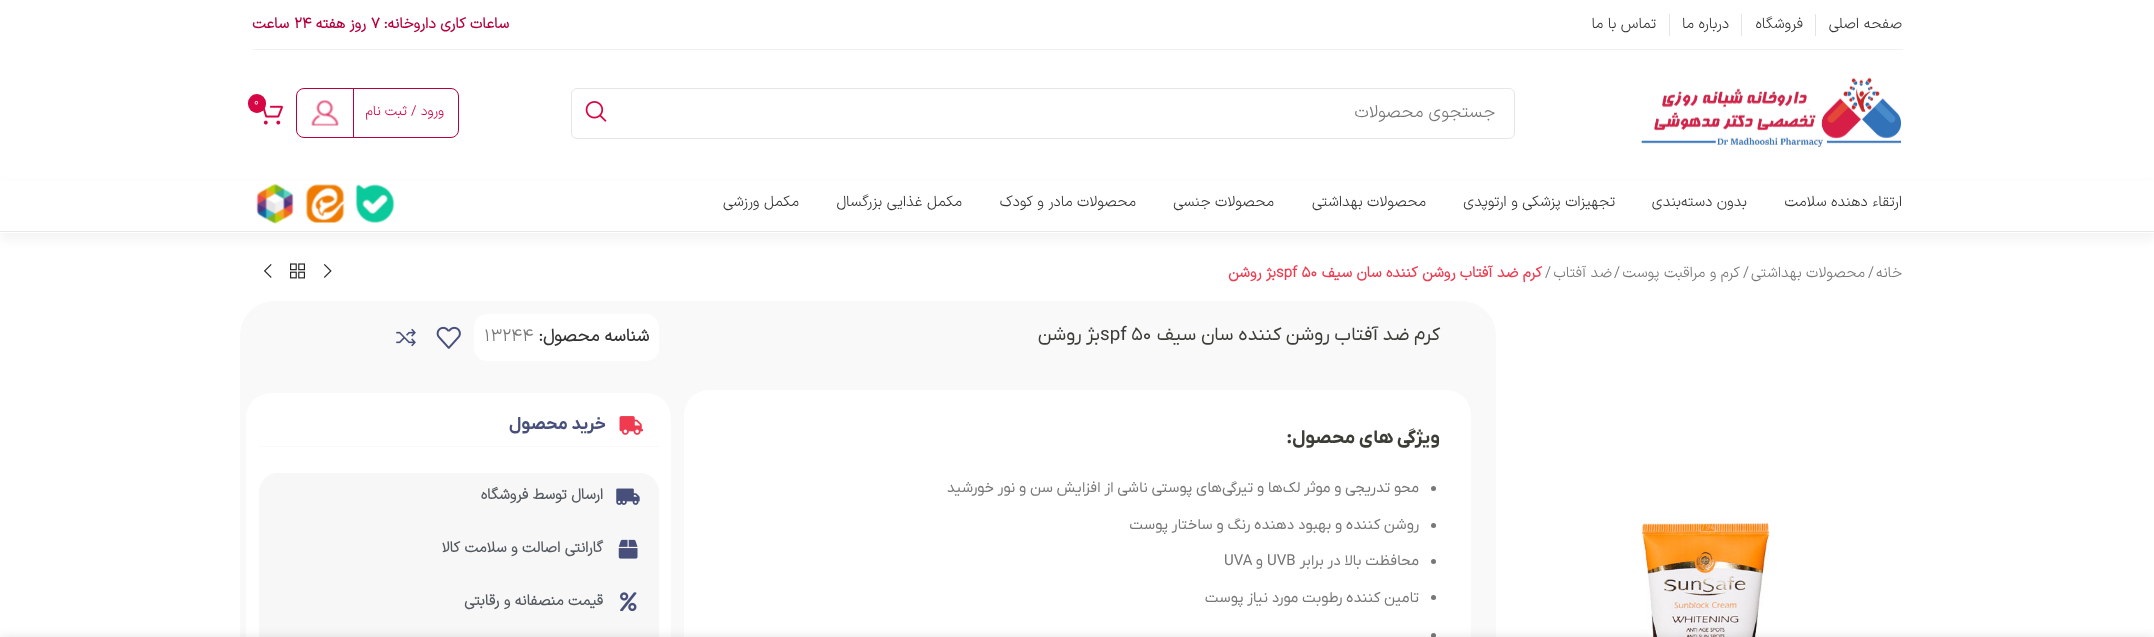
<svg xmlns="http://www.w3.org/2000/svg" width="2154" height="637" viewBox="0 0 2154 637">
  <rect width="100%" height="100%" fill="#fff"/>
  <path d="M253 49h1650v1H253z" fill="#f1f1f1"/>
  <path d="M1815 14h1v22H1815z" fill="#e4e4e4"/>
  <path d="M1741 14h1v22H1741z" fill="#e4e4e4"/>
  <path d="M1669 14h1v22H1669z" fill="#e4e4e4"/>
  <image x="1641" y="77" width="260" height="70" href="img/1.png"/>
  <rect x="571.5" y="88.5" width="943" height="50" rx="5.5" fill="none" stroke="#e6e6e6"/>
  <image x="585" y="101" width="22" height="21" href="img/2.png"/>
  <image x="263" y="105" width="20" height="20" href="img/3.png"/>
  <rect x="248" y="94" width="18" height="19" rx="9" fill="#d60644"/>
  <rect x="296.5" y="88.5" width="162" height="49" rx="7.5" fill="none" stroke="#b5003c"/>
  <path d="M353 88h1v50H353z" fill="#b5003c"/>
  <image x="311" y="100" width="28" height="26" href="img/4.png"/>
  <path d="M0 184h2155v57H0z" fill="#0000000a" filter="blur(5px)"/>
  <path d="M0 181h2154v52H0z" fill="#fff"/>
  <path d="M0 231h2154v1H0z" fill="#e8e8e8"/>
  <image x="355" y="184" width="40" height="39" href="img/5.png"/>
  <image x="305" y="184" width="40" height="39" href="img/6.png"/>
  <image x="256" y="183" width="38" height="41" href="img/7.png"/>
  <image x="323" y="264" width="9" height="14" href="img/8.png"/>
  <image x="290" y="263" width="15" height="16" href="img/9.png"/>
  <image x="264" y="264" width="8" height="14" href="img/10.png"/>
  <image x="1641" y="519" width="129" height="118" href="img/11.png"/>
  <path d="M659 301H1461C1480.5 301 1496 316.5 1496 336V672H659Z" fill="#f9f9f9"/>
  <rect x="684" y="390" width="787" height="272" rx="25" fill="#fff"/>
  <circle cx="1433.5" cy="488.5" r="2.5" fill="#777"/>
  <circle cx="1433.5" cy="525.5" r="2.5" fill="#777"/>
  <circle cx="1433.5" cy="561.5" r="2.5" fill="#777"/>
  <circle cx="1433.5" cy="597.5" r="2.5" fill="#777"/>
  <circle cx="1433.5" cy="635.5" r="2.5" fill="#777"/>
  <path d="M275 301H659V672H275C255.5 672 240 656.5 240 637V336C240 316.5 255.5 301 275 301Z" fill="#f9f9f9"/>
  <rect x="474" y="314" width="185" height="47" rx="13" fill="#fff"/>
  <image x="436" y="326" width="25" height="23" href="img/12.png"/>
  <image x="396" y="328" width="20" height="19" href="img/13.png"/>
  <rect x="246" y="393" width="425" height="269" rx="25" fill="#fff"/>
  <path d="M259 446h400v1H259z" fill="#f9f9f9"/>
  <image x="619" y="416" width="24" height="19" href="img/14.png"/>
  <rect x="259" y="473" width="400" height="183" rx="19" fill="#f7f7f7"/>
  <image x="616" y="488" width="24" height="17" href="img/15.png"/>
  <image x="618" y="539" width="20" height="20" href="img/16.png"/>
  <image x="620" y="592" width="17" height="20" href="img/17.png"/>
  <path d="M0 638h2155v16H0z" fill="#0000001f" filter="blur(5.5px)"/>
  <g font-family="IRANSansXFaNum" font-size="15" font-weight="300" direction="rtl" fill="#333">
    <text x="1902" y="28">صفحه اصلی</text>
    <text x="1803" y="28">فروشگاه</text>
    <text x="1729" y="28">درباره ما</text>
    <text x="1656" y="28">تماس با ما</text>
  </g>
  <text x="509" y="28" font-family="IRANSansXFaNum" font-size="15" font-weight="bold" direction="rtl" fill="#b5003c">ساعات کاری داروخانه:</text>
  <text x="371" y="28" font-family="IRANSansXFaNum" font-size="15" font-weight="bold" fill="#b5003c">7</text>
  <text x="366" y="28" font-family="IRANSansXFaNum" font-size="15" font-weight="bold" direction="rtl" fill="#b5003c">روز هفته</text>
  <text x="294" y="28" font-family="IRANSansXFaNum" font-size="15" font-weight="bold" fill="#b5003c">24</text>
  <text x="289" y="28" font-family="IRANSansXFaNum" font-size="15" font-weight="bold" direction="rtl" fill="#b5003c">ساعت</text>
  <text x="1495" y="117" font-family="IRANSansXFaNum" font-size="17.5" font-weight="300" direction="rtl" fill="#767676">جستجوی محصولات</text>
  <text x="254" y="105" font-family="IRANSansXFaNum" font-size="11" font-weight="300" fill="#fff">0</text>
  <text x="444" y="115" font-family="IRANSansXFaNum" font-size="13.75" font-weight="300" direction="rtl" fill="#d60644">ورود / ثبت نام</text>
  <g font-family="IRANSansXFaNum" font-size="15" font-weight="300" direction="rtl" fill="#333">
    <text x="1902" y="206">ارتقاء دهنده سلامت</text>
    <text x="1747" y="206">بدون دسته‌بندی</text>
    <text x="1615" y="206">تجهیزات پزشکی و ارتوپدی</text>
    <text x="1426" y="206">محصولات بهداشتی</text>
    <text x="1274" y="206">محصولات جنسی</text>
    <text x="1136" y="206">محصولات مادر و کودک</text>
    <text x="962" y="206">مکمل غذایی بزرگسال</text>
    <text x="799" y="206">مکمل ورزشی</text>
  </g>
  <text x="1902" y="277" font-family="IRANSansXFaNum" font-size="15" font-weight="300" direction="rtl" fill="#767676">خانه</text>
  <text x="1868" y="277" font-family="IRANSansXFaNum" font-size="15" font-weight="300" fill="#767676">/</text>
  <text x="1865" y="277" font-family="IRANSansXFaNum" font-size="15" font-weight="300" direction="rtl" fill="#767676">محصولات بهداشتی</text>
  <text x="1743" y="277" font-family="IRANSansXFaNum" font-size="15" font-weight="300" fill="#767676">/</text>
  <text x="1740" y="277" font-family="IRANSansXFaNum" font-size="15" font-weight="300" direction="rtl" fill="#767676">کرم و مراقبت پوست</text>
  <text x="1614" y="277" font-family="IRANSansXFaNum" font-size="15" font-weight="300" fill="#767676">/</text>
  <text x="1612" y="277" font-family="IRANSansXFaNum" font-size="15" font-weight="300" direction="rtl" fill="#767676">ضد آفتاب</text>
  <text x="1545" y="277" font-family="IRANSansXFaNum" font-size="15" font-weight="300" fill="#767676">/</text>
  <text x="1542" y="277" font-family="IRANSansXFaNum" font-size="15" font-weight="bold" direction="rtl" fill="#ef3a4f">کرم ضد آفتاب روشن کننده سان سیف</text>
  <text x="1276" y="277" font-family="IRANSansXFaNum" font-size="15" font-weight="bold" fill="#ef3a4f">spf 50</text>
  <text x="1276" y="277" font-family="IRANSansXFaNum" font-size="15" font-weight="bold" direction="rtl" fill="#ef3a4f">بژ روشن</text>
  <text x="1440" y="340" font-family="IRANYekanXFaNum" font-size="18.75" direction="rtl" fill="#3c3d37">کرم ضد آفتاب روشن کننده سان سیف</text>
  <text x="1100" y="340" font-family="IRANYekanXFaNum" font-size="18.75" fill="#3c3d37">spf 50</text>
  <text x="1100" y="340" font-family="IRANYekanXFaNum" font-size="18.75" direction="rtl" fill="#3c3d37">بژ روشن</text>
  <text x="1440" y="443" font-family="IRANYekanXFaNum" font-size="18.75" font-weight="bold" direction="rtl" fill="#3c3d37">ویژگی های محصول:</text>
  <g font-family="IRANYekanXFaNum" font-size="15" direction="rtl" fill="#767676">
    <text x="1419" y="492">محو تدریجی و موثر لک‌ها و تیرگی‌های پوستی ناشی از افزایش سن و نور خورشید</text>
    <text x="1419" y="529">روشن کننده و بهبود دهنده رنگ و ساختار پوست</text>
    <text x="1419" y="565">محافظت بالا در برابر</text>
  </g>
  <text x="1267" y="565" font-family="IRANYekanXFaNum" font-size="15" fill="#767676">UVB</text>
  <text x="1263" y="565" font-family="IRANYekanXFaNum" font-size="15" direction="rtl" fill="#767676">و</text>
  <text x="1224" y="565" font-family="IRANYekanXFaNum" font-size="15" fill="#767676">UVA</text>
  <text x="1419" y="602" font-family="IRANYekanXFaNum" font-size="15" direction="rtl" fill="#767676">تامین کننده رطوبت مورد نیاز پوست</text>
  <text x="649" y="341" font-family="IRANSansXFaNum" font-size="17.5" font-weight="bold" direction="rtl" fill="#333">شناسه محصول:</text>
  <text x="484" y="341" font-family="IRANSansXFaNum" font-size="17.5" font-weight="300" fill="#767676">13244</text>
  <text x="606" y="429" font-family="IRANYekanXFaNum" font-size="17.5" font-weight="bold" direction="rtl" fill="#474f7a">خرید محصول</text>
  <g font-family="IRANSansXFaNum" font-size="15" font-weight="bold" direction="rtl" fill="#54595f">
    <text x="603" y="499">ارسال توسط فروشگاه</text>
    <text x="603" y="552">گارانتی اصالت و سلامت کالا</text>
    <text x="603" y="605">قیمت منصفانه و رقابتی</text>
  </g>
</svg>
